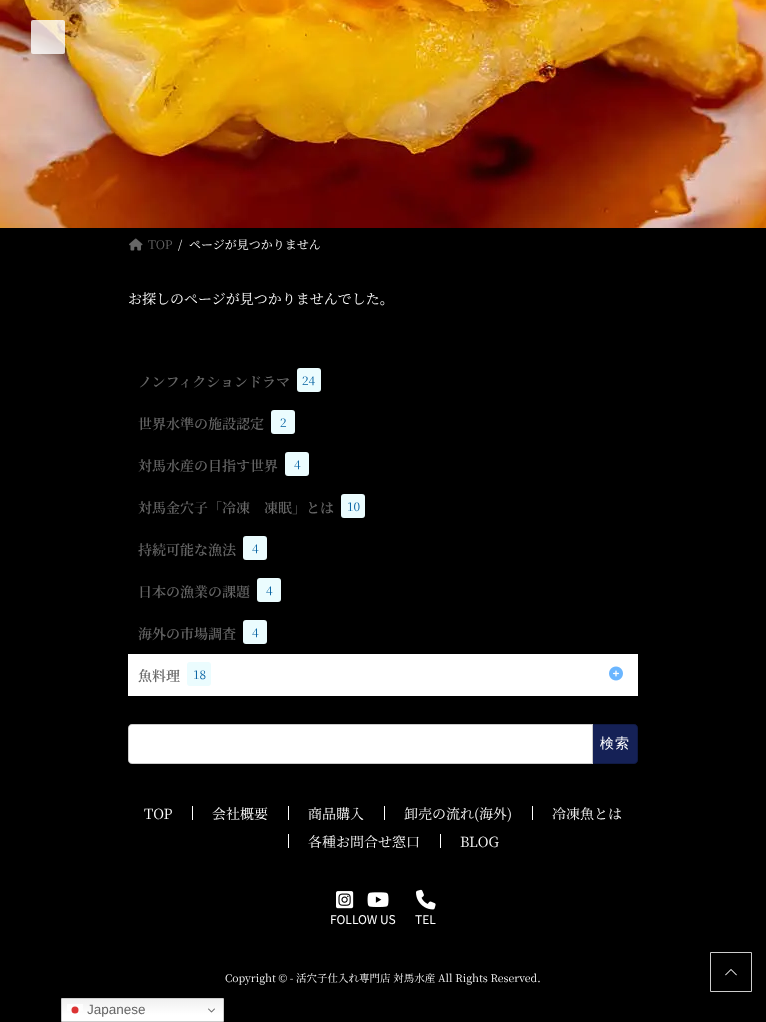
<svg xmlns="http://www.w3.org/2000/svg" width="766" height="1022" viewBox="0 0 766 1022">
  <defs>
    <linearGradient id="g1" gradientUnits="userSpaceOnUse" x1="143" y1="998" x2="143" y2="1022"><stop offset="0" stop-color="#efefef"/><stop offset="0.7" stop-color="#fff"/></linearGradient>
    <linearGradient id="g2" gradientUnits="userSpaceOnUse" x1="143" y1="998" x2="143" y2="1022"><stop offset="0" stop-color="#fcfcfc"/><stop offset="0.7" stop-color="#fff"/></linearGradient>
  </defs>
  <rect width="100%" height="100%" fill="#000"/>
  <image x="0" y="0" width="766" height="228" href="img/1.png"/>
  <rect x="31" y="20" width="34" height="34" rx="2" fill="#ffffffcc"/>
  <image x="129" y="238" width="14" height="13" href="img/2.png"/>
  <rect x="297" y="368" width="24" height="24" rx="3" fill="#ebfcfe"/>
  <rect x="271" y="410" width="24" height="24" rx="3" fill="#ebfcfe"/>
  <rect x="285" y="452" width="24" height="24" rx="3" fill="#ebfcfe"/>
  <rect x="341" y="494" width="24" height="24" rx="3" fill="#ebfcfe"/>
  <rect x="243" y="536" width="24" height="24" rx="3" fill="#ebfcfe"/>
  <rect x="257" y="578" width="24" height="24" rx="3" fill="#ebfcfe"/>
  <rect x="243" y="620" width="24" height="24" rx="3" fill="#ebfcfe"/>
  <path d="M128 654h510v42H128z" fill="#fff"/>
  <rect x="187" y="662" width="24" height="24" rx="3" fill="#ebfcfe"/>
  <image x="609" y="666" width="14" height="15" href="img/3.png"/>
  <path d="M132 724H593V764H132C130 764 128 762 128 760V728C128 726 130 724 132 724Z" fill="#fff"/>
  <path d="M132 724.5H592.5V763.5H132C130 763.5 128.5 762 128.5 760V728C128.5 726 130 724.5 132 724.5Z" fill="none" stroke="#00000033"/>
  <path d="M593 724H634C636 724 638 726 638 728V760C638 762 636 764 634 764H593Z" fill="#152156"/>
  <path d="M593 724H634C636 724 638 726 638 728V760C638 762 636 764 634 764H593ZM593 725H634C636 725 637 726 637 728V760C637 762 636 763 634 763H593Z" fill="#00000033" fill-rule="evenodd"/>
  <path d="M192 806h1v14H192z" fill="#fff"/>
  <path d="M288 806h1v14H288z" fill="#fff"/>
  <path d="M384 806h1v14H384z" fill="#fff"/>
  <path d="M532 806h1v14H532z" fill="#fff"/>
  <path d="M288 834h1v14H288z" fill="#fff"/>
  <path d="M440 834h1v14H440z" fill="#fff"/>
  <image x="336" y="891" width="18" height="18" href="img/4.png"/>
  <image x="367" y="892" width="22" height="15" href="img/5.png"/>
  <image x="416" y="889" width="20" height="21" href="img/6.png"/>
  <path d="M710.5 952.5h41v39H710.5z" fill="none" stroke="#ccc"/>
  <image x="725" y="969" width="12" height="7" href="img/7.png"/>
  <path d="M62 999h161v22H62z" fill="url(#g1)"/>
  <path d="M67 1004h16v7H67z" fill="url(#g2)"/>
  <path d="M61.5 998.5h162v23H61.5z" fill="none" stroke="#ccc"/>
  <circle cx="75" cy="1010" r="3.5" fill="#dc3333"/>
  <image x="208" y="1008" width="7" height="5" href="img/8.png"/>
  <text x="148" y="249" font-family="Noto Serif JP" font-size="12" fill="#666">TOP</text>
  <g font-family="Noto Serif JP" font-size="12" fill="#fff">
    <text x="178" y="249">/</text>
    <text x="189" y="249">ページが見つかりません</text>
  </g>
  <text x="128" y="304" font-family="Noto Serif JP" font-size="14" fill="#fff">お探しのページが見つかりませんでした。</text>
  <text x="138" y="387" font-family="Noto Serif JP" font-size="14" font-weight="600" fill="#666">ノンフィクションドラマ</text>
  <text x="302" y="385" font-family="Noto Serif JP" font-size="12" fill="#005fa0">24</text>
  <text x="138" y="429" font-family="Noto Serif JP" font-size="14" font-weight="600" fill="#666">世界水準の施設認定</text>
  <text x="280" y="427" font-family="Noto Serif JP" font-size="12" fill="#005fa0">2</text>
  <text x="138" y="471" font-family="Noto Serif JP" font-size="14" font-weight="600" fill="#666">対馬水産の目指す世界</text>
  <text x="294" y="469" font-family="Noto Serif JP" font-size="12" fill="#005fa0">4</text>
  <text x="138" y="513" font-family="Noto Serif JP" font-size="14" font-weight="600" fill="#666">対馬金穴子「冷凍　凍眠」とは</text>
  <text x="347" y="511" font-family="Noto Serif JP" font-size="12" fill="#005fa0">10</text>
  <text x="138" y="555" font-family="Noto Serif JP" font-size="14" font-weight="600" fill="#666">持続可能な漁法</text>
  <text x="252" y="553" font-family="Noto Serif JP" font-size="12" fill="#005fa0">4</text>
  <text x="138" y="597" font-family="Noto Serif JP" font-size="14" font-weight="600" fill="#666">日本の漁業の課題</text>
  <text x="266" y="595" font-family="Noto Serif JP" font-size="12" fill="#005fa0">4</text>
  <text x="138" y="639" font-family="Noto Serif JP" font-size="14" font-weight="600" fill="#666">海外の市場調査</text>
  <text x="252" y="637" font-family="Noto Serif JP" font-size="12" fill="#005fa0">4</text>
  <text x="138" y="681" font-family="Noto Serif JP" font-size="14" font-weight="600" fill="#666">魚料理</text>
  <text x="193" y="679" font-family="Noto Serif JP" font-size="12" fill="#005fa0">18</text>
  <text x="600" y="748" font-family="WenQuanYi Zen Hei" font-size="14" font-weight="500" letter-spacing="1" fill="#fff">検索</text>
  <g font-family="Noto Serif JP" font-size="14" fill="#fff">
    <text x="144" y="819">TOP</text>
    <text x="212" y="819">会社概要</text>
    <text x="308" y="819">商品購入</text>
    <text x="404" y="819">卸売の流れ(海外)</text>
    <text x="552" y="819">冷凍魚とは</text>
    <text x="308" y="847">各種お問合せ窓口</text>
    <text x="460" y="847">BLOG</text>
  </g>
  <g font-family="Noto Sans JP" font-size="12" fill="#fff">
    <text x="330" y="924">FOLLOW US</text>
    <text x="415" y="924">TEL</text>
  </g>
  <text x="225" y="982" font-family="Noto Serif JP" font-size="10.5" fill="#fff">Copyright © - 活穴子仕入れ専門店 対馬水産 All Rights Reserved.</text>
  <text x="87" y="1014" font-family="Liberation Sans" font-size="13.5" fill="#666">Japanese</text>
</svg>
